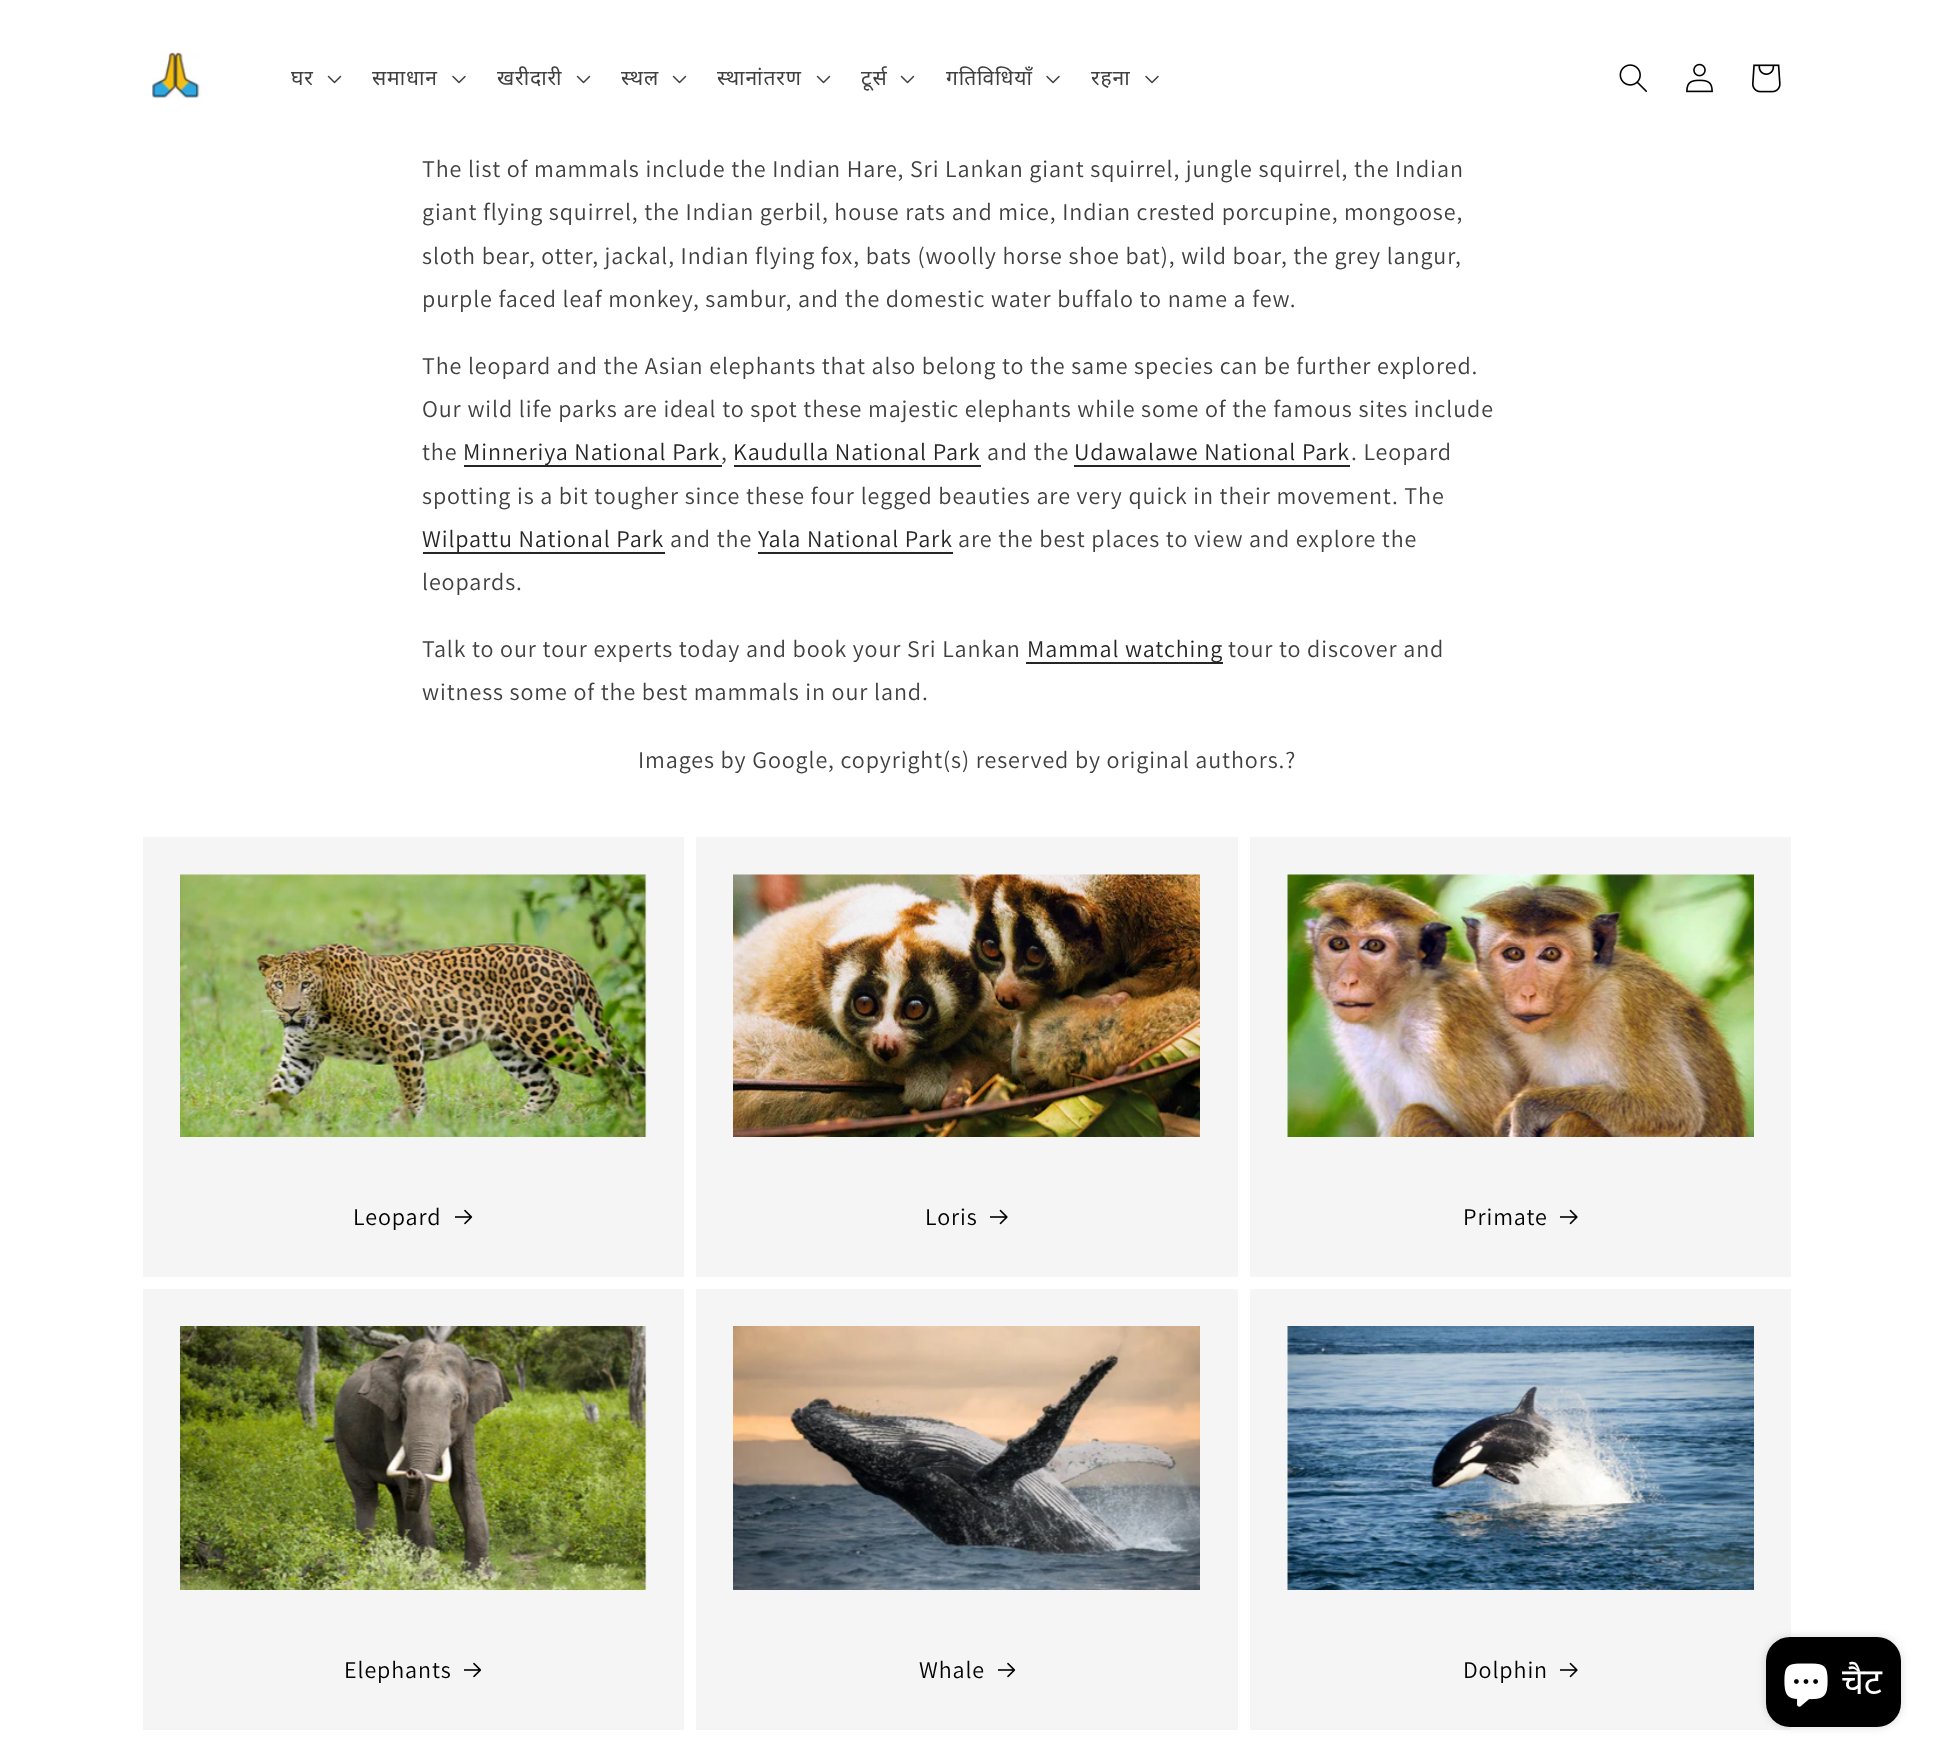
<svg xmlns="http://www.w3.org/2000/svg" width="1933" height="1757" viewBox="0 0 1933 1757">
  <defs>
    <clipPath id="clip1"><path d="M1842 1659h41v45H1842z"/></clipPath>
  </defs>
  <rect width="100%" height="100%" fill="#fff"/>
  <image x="152" y="50" width="50" height="50" href="img/1.png"/>
  <image x="327" y="75" width="15" height="9" href="img/2.png"/>
  <image x="452" y="75" width="14" height="9" href="img/3.png"/>
  <image x="576" y="75" width="15" height="9" href="img/2.png"/>
  <image x="672" y="75" width="15" height="9" href="img/2.png"/>
  <image x="816" y="75" width="15" height="9" href="img/2.png"/>
  <image x="900" y="75" width="15" height="9" href="img/2.png"/>
  <image x="1046" y="75" width="14" height="9" href="img/3.png"/>
  <image x="1145" y="75" width="14" height="9" href="img/3.png"/>
  <image x="1619" y="64" width="28" height="28" href="img/4.png"/>
  <image x="1686" y="63" width="27" height="30" href="img/5.png"/>
  <image x="1752" y="64" width="29" height="29" href="img/6.png"/>
  <path d="M464 465h258v2H464z" fill="#262626"/>
  <path d="M734 465h247v2H734z" fill="#262626"/>
  <path d="M1074 465h276v2H1074z" fill="#262626"/>
  <path d="M423 552h242v2H423z" fill="#262626"/>
  <path d="M758 552h195v2H758z" fill="#262626"/>
  <path d="M1026 662h197v2H1026z" fill="#262626"/>
  <path d="M143 837h541v440H143z" fill="#f5f5f5"/>
  <image x="180" y="874" width="467" height="263" href="img/7.png"/>
  <image x="455" y="1209" width="18" height="16" href="img/8.png"/>
  <path d="M696 837h542v440H696z" fill="#f5f5f5"/>
  <image x="733" y="874" width="467" height="263" href="img/9.png"/>
  <image x="990" y="1209" width="18" height="16" href="img/10.png"/>
  <path d="M1250 837h541v440H1250z" fill="#f5f5f5"/>
  <image x="1287" y="874" width="467" height="263" href="img/11.png"/>
  <image x="1560" y="1209" width="18" height="16" href="img/10.png"/>
  <path d="M143 1289h541v441H143z" fill="#f5f5f5"/>
  <image x="180" y="1326" width="467" height="264" href="img/12.png"/>
  <image x="464" y="1662" width="18" height="16" href="img/8.png"/>
  <path d="M696 1289h542v441H696z" fill="#f5f5f5"/>
  <image x="733" y="1326" width="467" height="264" href="img/13.png"/>
  <image x="998" y="1662" width="18" height="16" href="img/8.png"/>
  <path d="M1250 1289h541v441H1250z" fill="#f5f5f5"/>
  <image x="1287" y="1326" width="467" height="264" href="img/14.png"/>
  <image x="1560" y="1662" width="18" height="16" href="img/10.png"/>
  <rect x="1766" y="1637" width="135" height="90" rx="24" fill="#00000026" filter="blur(4px)"/>
  <rect x="1766" y="1637" width="135" height="90" rx="24" fill="#000"/>
  <image x="1784" y="1663" width="44" height="44" href="img/15.png"/>
  <g font-family="Noto Sans" font-size="21" letter-spacing="0.9" fill="#404040">
    <text x="291" y="85">घर</text>
    <text x="372" y="85">समाधान</text>
    <text x="497" y="85">खरीदारी</text>
    <text x="621" y="85">स्थल</text>
    <text x="717" y="85">स्थानांतरण</text>
    <text x="861" y="85">टूर्स</text>
    <text x="946" y="85">गतिविधियाँ</text>
    <text x="1091" y="85">रहना</text>
  </g>
  <g font-family="Assistant" font-size="24" letter-spacing="0.9" fill="#404040">
    <text x="422" y="177">The list of mammals include the Indian Hare, Sri Lankan giant squirrel, jungle squirrel, the Indian</text>
    <text x="422" y="220">giant flying squirrel, the Indian gerbil, house rats and mice, Indian crested porcupine, mongoose,</text>
    <text x="422" y="264">sloth bear, otter, jackal, Indian flying fox, bats (woolly horse shoe bat), wild boar, the grey langur,</text>
    <text x="422" y="307">purple faced leaf monkey, sambur, and the domestic water buffalo to name a few.</text>
    <text x="422" y="374">The leopard and the Asian elephants that also belong to the same species can be further explored.</text>
    <text x="422" y="417">Our wild life parks are ideal to spot these majestic elephants while some of the famous sites include</text>
    <text x="422" y="460">the</text>
  </g>
  <text x="463" y="460" font-family="Assistant" font-size="24" letter-spacing="0.9" fill="#262626">Minneriya National Park</text>
  <text x="721" y="460" font-family="Assistant" font-size="24" letter-spacing="0.9" fill="#404040">,</text>
  <text x="733" y="460" font-family="Assistant" font-size="24" letter-spacing="0.9" fill="#262626">Kaudulla National Park</text>
  <text x="987" y="460" font-family="Assistant" font-size="24" letter-spacing="0.9" fill="#404040">and the</text>
  <text x="1074" y="460" font-family="Assistant" font-size="24" letter-spacing="0.9" fill="#262626">Udawalawe National Park</text>
  <g font-family="Assistant" font-size="24" letter-spacing="0.9" fill="#404040">
    <text x="1351" y="460">. Leopard</text>
    <text x="422" y="504">spotting is a bit tougher since these four legged beauties are very quick in their movement. The</text>
  </g>
  <text x="422" y="547" font-family="Assistant" font-size="24" letter-spacing="0.9" fill="#262626">Wilpattu National Park</text>
  <text x="670" y="547" font-family="Assistant" font-size="24" letter-spacing="0.9" fill="#404040">and the</text>
  <text x="758" y="547" font-family="Assistant" font-size="24" letter-spacing="0.9" fill="#262626">Yala National Park</text>
  <g font-family="Assistant" font-size="24" letter-spacing="0.9" fill="#404040">
    <text x="958" y="547">are the best places to view and explore the</text>
    <text x="422" y="590">leopards.</text>
    <text x="422" y="657">Talk to our tour experts today and book your Sri Lankan</text>
  </g>
  <text x="1027" y="657" font-family="Assistant" font-size="24" letter-spacing="0.9" fill="#262626">Mammal watching</text>
  <g font-family="Assistant" font-size="24" letter-spacing="0.9" fill="#404040">
    <text x="1228" y="657">tour to discover and</text>
    <text x="422" y="700">witness some of the best mammals in our land.</text>
    <text x="638" y="768">Images by Google, copyright(s) reserved by original authors.?</text>
  </g>
  <g font-family="Assistant" font-size="24" letter-spacing="0.9" fill="#000">
    <text x="353" y="1225">Leopard</text>
    <text x="925" y="1225">Loris</text>
    <text x="1463" y="1225">Primate</text>
    <text x="344" y="1678">Elephants</text>
    <text x="919" y="1678">Whale</text>
    <text x="1463" y="1678">Dolphin</text>
  </g>
  <g clip-path="url(#clip1)">
    <text x="1841" y="1694" font-family="Noto Sans" font-size="36" fill="#fff">चैट</text>
  </g>
</svg>
